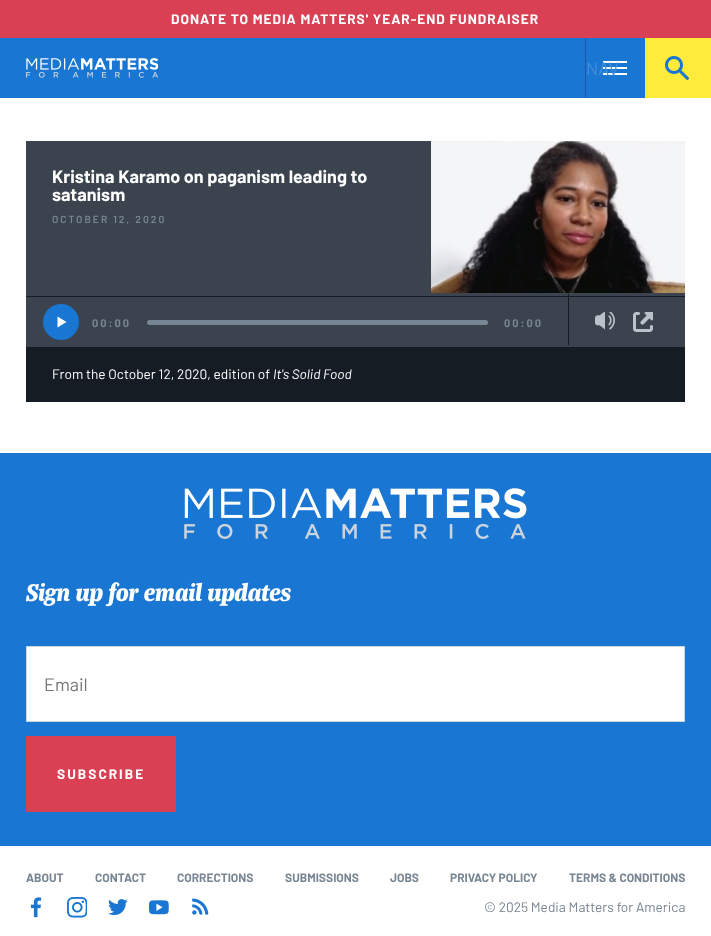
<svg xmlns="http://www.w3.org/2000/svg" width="711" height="936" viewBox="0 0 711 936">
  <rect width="100%" height="100%" fill="#fff"/>
  <path d="M0 0h711v38H0z" fill="#da4054"/>
  <path d="M0 38h645v60H0z" fill="#1976d2"/>
  <image x="26" y="58" width="132" height="20" href="img/1.png"/>
  <image x="603" y="61" width="24" height="14" href="img/2.png"/>
  <path d="M585 38h1v60H585z" fill="#2055b2"/>
  <path d="M645 38h66v60H645z" fill="#ffeb3b"/>
  <image x="665" y="56" width="24" height="24" href="img/3.png"/>
  <path d="M26 141h659v155H26z" fill="#3a434e"/>
  <image x="431" y="141" width="254" height="152" href="img/4.png"/>
  <path d="M26 297h659v50H26z" fill="#3a434e"/>
  <path d="M26 296h659v1H26z" fill="#161c24"/>
  <circle cx="61" cy="322" r="18" fill="#1976d2"/>
  <path d="M57.5 316.5L66.5 322L57.5 327.5Z" fill="#fff" fill-rule="evenodd"/>
  <rect x="147" y="320" width="341" height="5" rx="2.5" fill="#788592"/>
  <path d="M568 294h1v51H568z" fill="#161c24"/>
  <image x="595" y="312" width="20" height="18" href="img/5.png"/>
  <image x="633" y="312" width="20" height="20" href="img/6.png"/>
  <path d="M26 347h659v55H26z" fill="#161c24"/>
  <path d="M0 453h711v393H0z" fill="#1976d2"/>
  <image x="184" y="488" width="343" height="51" href="img/7.png"/>
  <path d="M26.5 646.5h658v75H26.5z" fill="#fff" stroke="#ccd4dd"/>
  <path d="M26 736h150v76H26z" fill="#da4054"/>
  <image x="30" y="897" width="12" height="21" href="img/8.png"/>
  <image x="67" y="897" width="20" height="21" href="img/9.png"/>
  <image x="108" y="899" width="20" height="17" href="img/10.png"/>
  <image x="149" y="900" width="20" height="15" href="img/11.png"/>
  <image x="192" y="898" width="17" height="17" href="img/12.png"/>
  <text x="171" y="24" font-family="Barlow" font-size="13.7" font-weight="bold" letter-spacing="1" fill="#fff">DONATE TO MEDIA MATTERS' YEAR-END FUNDRAISER</text>
  <text x="586" y="75" font-family="Barlow" font-size="18" fill="#418eda">NAV</text>
  <g font-family="Barlow" font-size="18" font-weight="bold" fill="#fff">
    <text x="52" y="183">Kristina Karamo on paganism leading to</text>
    <text x="52" y="201">satanism</text>
  </g>
  <text x="52" y="223" font-family="Barlow" font-size="10.25" font-weight="600" letter-spacing="2" fill="#788592">OCTOBER 12, 2020</text>
  <g font-family="Barlow" font-size="11" font-weight="bold" letter-spacing="2" fill="#788592">
    <text x="92" y="327">00:00</text>
    <text x="504" y="327">00:00</text>
  </g>
  <text x="52" y="379" font-family="Barlow" font-size="13.7" fill="#fff">From the October 12, 2020, edition of</text>
  <text x="273" y="379" font-family="Barlow" font-size="13.7" font-style="italic" fill="#fff">It's Solid Food</text>
  <text x="26" y="601" font-family="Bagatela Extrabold" font-size="25.75" font-weight="800" font-style="italic" fill="#fff">Sign up for email updates</text>
  <text x="44" y="691" font-family="Barlow" font-size="18" fill="#757575">Email</text>
  <text x="57" y="779" font-family="Barlow" font-size="13.7" font-weight="bold" letter-spacing="2" fill="#fff">SUBSCRIBE</text>
  <g font-family="Barlow" font-size="12" font-weight="bold" fill="#788592">
    <text x="26" y="882">ABOUT</text>
    <text x="95" y="882">CONTACT</text>
    <text x="177" y="882">CORRECTIONS</text>
    <text x="285" y="882">SUBMISSIONS</text>
    <text x="390" y="882">JOBS</text>
    <text x="450" y="882">PRIVACY POLICY</text>
    <text x="569" y="882">TERMS &amp; CONDITIONS</text>
  </g>
  <text x="484" y="912" font-family="Barlow" font-size="13.7" fill="#788592">© 2025 Media Matters for America</text>
</svg>
